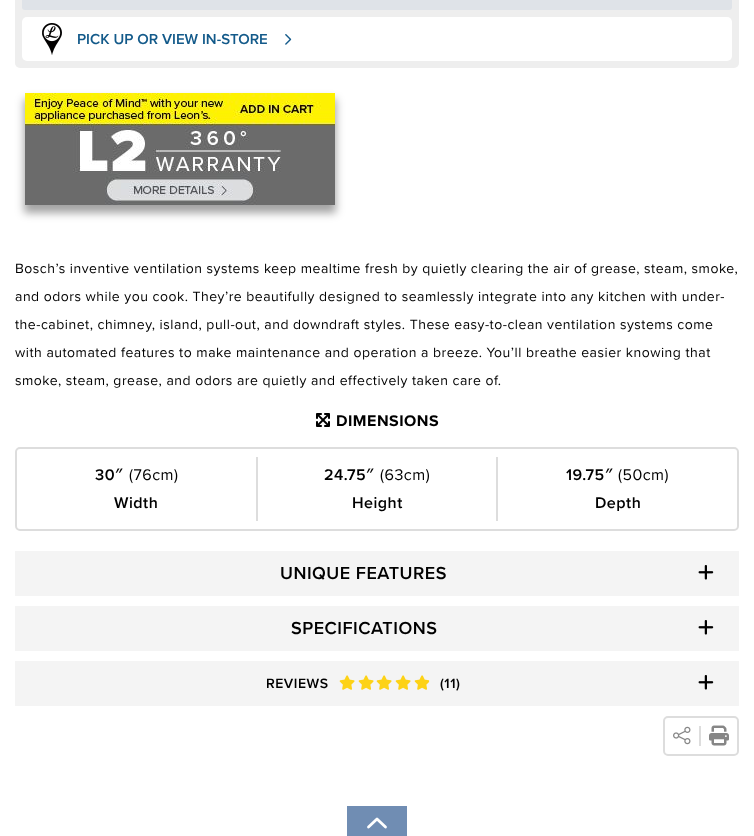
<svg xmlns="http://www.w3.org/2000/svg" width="754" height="836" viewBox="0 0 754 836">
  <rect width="100%" height="100%" fill="#fff"/>
  <rect x="15" y="-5" width="724" height="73" rx="5" fill="#eee"/>
  <rect x="22" y="-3" width="710" height="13" rx="3" fill="#dfe3e8"/>
  <rect x="22" y="17" width="710" height="44" rx="5" fill="#fff"/>
  <image x="42" y="23" width="20" height="32" href="img/1.png"/>
  <image x="285" y="34" width="7" height="11" href="img/2.png"/>
  <path d="M24 99h312v114H24z" fill="#0000005c" filter="blur(4.5px)"/>
  <image x="25" y="93" width="310" height="112" href="img/3.png"/>
  <image x="316" y="413" width="14" height="14" href="img/4.png"/>
  <rect x="16" y="448" width="722" height="82" rx="4" fill="none" stroke="#ddd" stroke-width="2"/>
  <path d="M256 457h2v64H256z" fill="#ddd"/>
  <path d="M496 457h2v64H496z" fill="#ddd"/>
  <path d="M15 551h724v45H15z" fill="#f4f4f4"/>
  <image x="698" y="565" width="16" height="15" href="img/5.png"/>
  <path d="M15 606h724v45H15z" fill="#f4f4f4"/>
  <image x="698" y="620" width="16" height="15" href="img/5.png"/>
  <path d="M15 661h724v45H15z" fill="#f4f4f4"/>
  <image x="339" y="675" width="16" height="15" href="img/6.png"/>
  <image x="358" y="675" width="16" height="15" href="img/6.png"/>
  <image x="376" y="675" width="16" height="15" href="img/6.png"/>
  <image x="395" y="675" width="16" height="15" href="img/6.png"/>
  <image x="414" y="675" width="16" height="15" href="img/7.png"/>
  <image x="698" y="675" width="16" height="15" href="img/5.png"/>
  <rect x="664" y="717" width="74" height="38" rx="4" fill="none" stroke="#ddd" stroke-width="2"/>
  <path d="M699 726h2v20H699z" fill="#ddd"/>
  <image x="673" y="726" width="18" height="19" href="img/8.png"/>
  <image x="709" y="725" width="20" height="21" href="img/9.png"/>
  <path d="M347 806h60v30H347z" fill="#708db3"/>
  <path d="M368.5 827L377 819L385.5 827" fill="none" stroke="#fff" stroke-width="2.8" stroke-linecap="round" stroke-linejoin="round"/>
  <text x="77" y="44" font-family="Proxima Nova" font-size="15" font-weight="600" fill="#135a8a">PICK UP OR VIEW IN-STORE</text>
  <g font-family="Proxima Nova" font-size="14" letter-spacing="0.5" fill="#000">
    <text x="15" y="273">Bosch’s inventive ventilation systems keep mealtime fresh by quietly clearing the air of grease, steam, smoke,</text>
    <text x="15" y="301">and odors while you cook. They’re beautifully designed to seamlessly integrate into any kitchen with under-</text>
    <text x="15" y="329">the-cabinet, chimney, island, pull-out, and downdraft styles. These easy-to-clean ventilation systems come</text>
    <text x="15" y="357">with automated features to make maintenance and operation a breeze. You’ll breathe easier knowing that</text>
    <text x="15" y="385">smoke, steam, grease, and odors are quietly and effectively taken care of.</text>
  </g>
  <text x="336" y="426" font-family="Proxima Nova" font-size="16" font-weight="bold" letter-spacing="0.5" fill="#000">DIMENSIONS</text>
  <text x="95" y="480" font-family="Proxima Nova" font-size="16" font-weight="600" letter-spacing="0.5" fill="#000">30</text>
  <text x="115" y="480" font-family="Open Sans" font-size="16" font-weight="600" letter-spacing="0.5" fill="#000">″</text>
  <text x="129" y="480" font-family="Proxima Nova" font-size="16" letter-spacing="0.5" fill="#000">(76cm)</text>
  <g font-family="Proxima Nova" font-size="16" font-weight="600" letter-spacing="0.5" fill="#000">
    <text x="114" y="508">Width</text>
    <text x="324" y="480">24.75</text>
  </g>
  <text x="366" y="480" font-family="Open Sans" font-size="16" font-weight="600" letter-spacing="0.5" fill="#000">″</text>
  <text x="380" y="480" font-family="Proxima Nova" font-size="16" letter-spacing="0.5" fill="#000">(63cm)</text>
  <g font-family="Proxima Nova" font-size="16" font-weight="600" letter-spacing="0.5" fill="#000">
    <text x="352" y="508">Height</text>
    <text x="566" y="480">19.75</text>
  </g>
  <text x="605" y="480" font-family="Open Sans" font-size="16" font-weight="600" letter-spacing="0.5" fill="#000">″</text>
  <text x="618" y="480" font-family="Proxima Nova" font-size="16" letter-spacing="0.5" fill="#000">(50cm)</text>
  <text x="595" y="508" font-family="Proxima Nova" font-size="16" font-weight="600" letter-spacing="0.5" fill="#000">Depth</text>
  <g font-family="Proxima Nova" font-size="18" font-weight="600" letter-spacing="0.5" fill="#000">
    <text x="280" y="579">UNIQUE FEATURES</text>
    <text x="291" y="634">SPECIFICATIONS</text>
  </g>
  <g font-family="Proxima Nova" font-size="14" font-weight="600" letter-spacing="0.5" fill="#000">
    <text x="266" y="688">REVIEWS</text>
    <text x="440" y="688">(11)</text>
  </g>
</svg>
